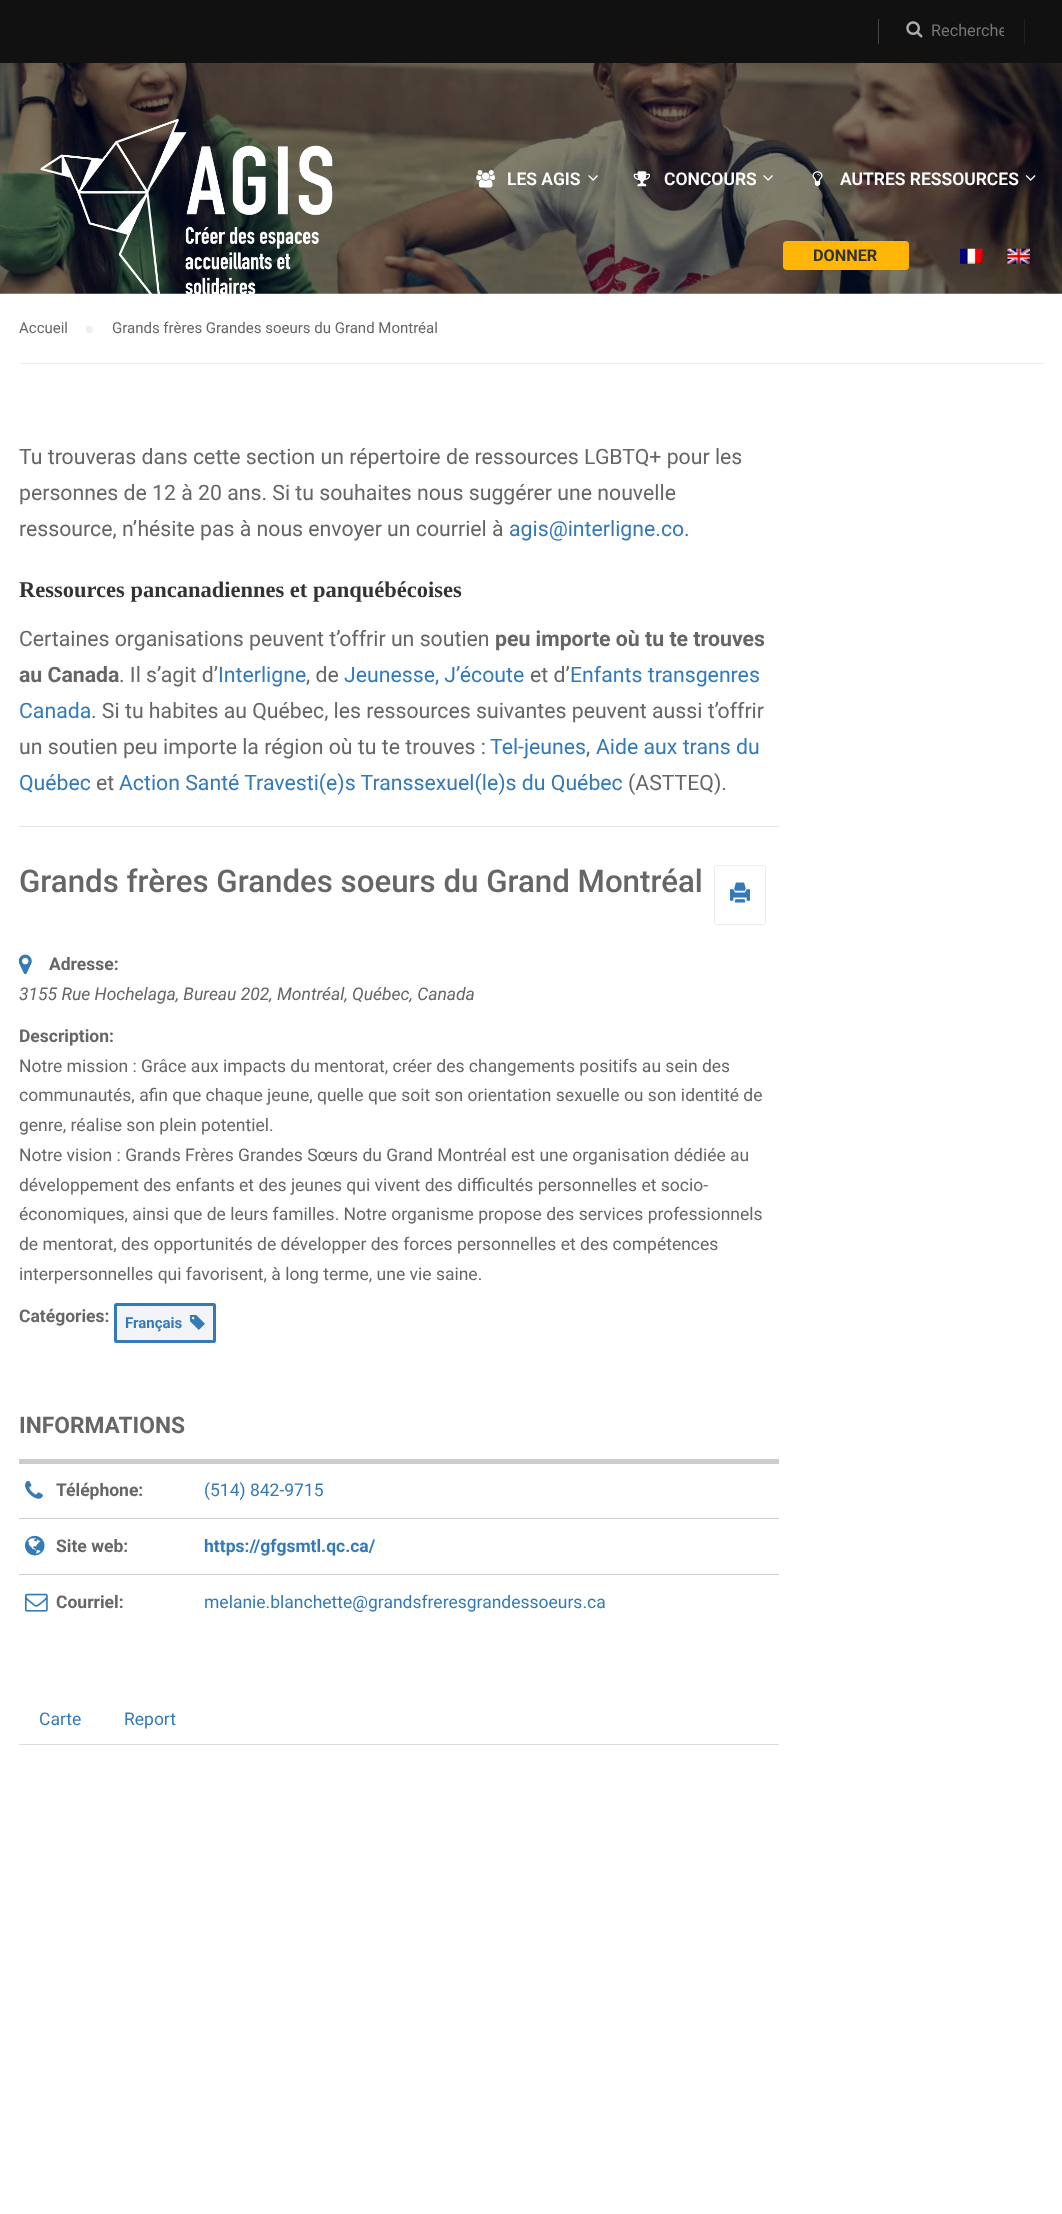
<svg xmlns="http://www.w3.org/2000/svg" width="1062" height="2214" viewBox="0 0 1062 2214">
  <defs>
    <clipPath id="clip1"><path d="M931 21h73v19H931z"/></clipPath>
  </defs>
  <rect width="100%" height="100%" fill="#fff"/>
  <path d="M0 0h1062v63H0z" fill="#111"/>
  <path d="M878 19h1v25H878z" fill="#444"/>
  <image x="906" y="21" width="17" height="17" href="img/1.png"/>
  <path d="M1024 19h1v25H1024z" fill="#212121"/>
  <image x="0" y="63" width="1062" height="231" href="img/11.png"/>
  <image x="40" y="118" width="293" height="176" href="img/2.png"/>
  <image x="476" y="170" width="19" height="18" href="img/3.png"/>
  <image x="588" y="175" width="10" height="6" href="img/4.png"/>
  <image x="633" y="171" width="17" height="16" href="img/5.png"/>
  <image x="763" y="175" width="10" height="6" href="img/6.png"/>
  <image x="812" y="171" width="11" height="16" href="img/7.png"/>
  <image x="1025" y="175" width="11" height="6" href="img/8.png"/>
  <rect x="783" y="241" width="126" height="29" rx="4" fill="#ffb606"/>
  <image x="960" y="248" width="23" height="16" href="img/9.png"/>
  <image x="1007" y="248" width="23" height="16" href="img/10.png"/>
  <path d="M19 363h1025v1H19z" fill="#eee"/>
  <circle cx="89.5" cy="329.5" r="3.5" fill="#eee"/>
  <path d="M19 826h760v1H19z" fill="#e6e6e6"/>
  <rect x="714.5" y="865.5" width="51" height="59" rx="2" fill="none" stroke="#ebebeb"/>
  <image x="730" y="882" width="20" height="21" href="img/12.png"/>
  <image x="19" y="954" width="13" height="21" href="img/13.png"/>
  <rect x="115.5" y="1304.5" width="99" height="37" rx="1" fill="#f3f4f7" stroke="#337ab7" stroke-width="3"/>
  <image x="190" y="1315" width="15" height="15" href="img/14.png"/>
  <path d="M19 1459h760v5H19z" fill="#ccc"/>
  <path d="M19 1518h760v1H19z" fill="#ccc"/>
  <image x="25" y="1480" width="18" height="19" href="img/15.png"/>
  <path d="M19 1574h760v1H19z" fill="#ccc"/>
  <image x="25" y="1535" width="20" height="21" href="img/16.png"/>
  <image x="25" y="1593" width="23" height="19" href="img/17.png"/>
  <path d="M19 1744h760v1H19z" fill="#ddd"/>
  <g clip-path="url(#clip1)">
    <text x="931" y="36" font-family="Roboto" font-size="16.25" fill="#757575">Recherche</text>
  </g>
  <g font-family="Roboto" font-size="17.5" font-weight="600" fill="#fff">
    <text x="507" y="185">LES AGIS</text>
    <text x="664" y="185">CONCOURS</text>
    <text x="840" y="185">AUTRES RESSOURCES</text>
  </g>
  <text x="813" y="261" font-family="Roboto" font-size="16.25" font-weight="bold" fill="#333">DONNER</text>
  <g font-family="Roboto" font-size="15" fill="#666">
    <text x="19" y="333">Accueil</text>
    <text x="112" y="333">Grands frères Grandes soeurs du Grand Montréal</text>
  </g>
  <g font-family="Roboto" font-size="21.25" fill="#666">
    <text x="19" y="464">Tu trouveras dans cette section un répertoire de ressources LGBTQ+ pour les</text>
    <text x="19" y="500">personnes de 12 à 20 ans. Si tu souhaites nous suggérer une nouvelle</text>
    <text x="19" y="536">ressource, n’hésite pas à nous envoyer un courriel à</text>
  </g>
  <text x="509" y="536" font-family="Roboto" font-size="21.25" fill="#337ab7">agis@interligne.co</text>
  <text x="684" y="536" font-family="Roboto" font-size="21.25" fill="#666">.</text>
  <text x="19" y="597" font-family="Liberation Serif" font-size="22.5" font-weight="bold" fill="#333">Ressources pancanadiennes et panquébécoises</text>
  <text x="19" y="646" font-family="Roboto" font-size="21.25" fill="#666">Certaines organisations peuvent t’offrir un soutien</text>
  <g font-family="Roboto" font-size="21.25" font-weight="bold" fill="#666">
    <text x="495" y="646">peu importe où tu te trouves</text>
    <text x="19" y="682">au Canada</text>
  </g>
  <text x="119" y="682" font-family="Roboto" font-size="21.25" fill="#666">. Il s’agit d’</text>
  <text x="218" y="682" font-family="Roboto" font-size="21.25" fill="#337ab7">Interligne</text>
  <text x="306" y="682" font-family="Roboto" font-size="21.25" fill="#666">, de</text>
  <text x="344" y="682" font-family="Roboto" font-size="21.25" fill="#337ab7">Jeunesse, J’écoute</text>
  <text x="530" y="682" font-family="Roboto" font-size="21.25" fill="#666">et d’</text>
  <g font-family="Roboto" font-size="21.25" fill="#337ab7">
    <text x="570" y="682">Enfants transgenres</text>
    <text x="19" y="718">Canada</text>
  </g>
  <g font-family="Roboto" font-size="21.25" fill="#666">
    <text x="91" y="718">. Si tu habites au Québec, les ressources suivantes peuvent aussi t’offrir</text>
    <text x="19" y="754">un soutien peu importe la région où tu te trouves :</text>
  </g>
  <text x="490" y="754" font-family="Roboto" font-size="21.25" fill="#337ab7">Tel-jeunes</text>
  <text x="586" y="754" font-family="Roboto" font-size="21.25" fill="#666">,</text>
  <g font-family="Roboto" font-size="21.25" fill="#337ab7">
    <text x="596" y="754">Aide aux trans du</text>
    <text x="19" y="790">Québec</text>
  </g>
  <text x="96" y="790" font-family="Roboto" font-size="21.25" fill="#666">et</text>
  <text x="119" y="790" font-family="Roboto" font-size="21.25" fill="#337ab7">Action Santé Travesti(e)s Transsexuel(le)s du Québec</text>
  <text x="628" y="790" font-family="Roboto" font-size="21.25" fill="#666">(ASTTEQ).</text>
  <text x="19" y="892" font-family="Roboto" font-size="31.25" font-weight="500" fill="#666">Grands frères Grandes soeurs du Grand Montréal</text>
  <text x="49" y="970" font-family="Roboto" font-size="17.5" font-weight="bold" fill="#666">Adresse:</text>
  <text x="19" y="1000" font-family="Roboto" font-size="17.5" font-style="italic" fill="#666">3155 Rue Hochelaga, Bureau 202, Montréal, Québec, Canada</text>
  <text x="19" y="1042" font-family="Roboto" font-size="17.5" font-weight="bold" fill="#666">Description:</text>
  <g font-family="Roboto" font-size="17.5" fill="#666">
    <text x="19" y="1072">Notre mission : Grâce aux impacts du mentorat, créer des changements positifs au sein des</text>
    <text x="19" y="1101">communautés, afin que chaque jeune, quelle que soit son orientation sexuelle ou son identité de</text>
    <text x="19" y="1131">genre, réalise son plein potentiel.</text>
    <text x="19" y="1161">Notre vision : Grands Frères Grandes Sœurs du Grand Montréal est une organisation dédiée au</text>
    <text x="19" y="1191">développement des enfants et des jeunes qui vivent des difficultés personnelles et socio-</text>
    <text x="19" y="1220">économiques, ainsi que de leurs familles. Notre organisme propose des services professionnels</text>
    <text x="19" y="1250">de mentorat, des opportunités de développer des forces personnelles et des compétences</text>
    <text x="19" y="1280">interpersonnelles qui favorisent, à long terme, une vie saine.</text>
  </g>
  <text x="19" y="1322" font-family="Roboto" font-size="17.5" font-weight="bold" fill="#666">Catégories:</text>
  <text x="125" y="1328" font-family="Roboto" font-size="15" font-weight="bold" fill="#337ab7">Français</text>
  <text x="19" y="1433" font-family="Roboto" font-size="22.75" font-weight="bold" fill="#666">INFORMATIONS</text>
  <text x="56" y="1496" font-family="Roboto" font-size="17.5" font-weight="bold" fill="#666">Téléphone:</text>
  <text x="204" y="1496" font-family="Roboto" font-size="17.5" fill="#337ab7">(514) 842-9715</text>
  <text x="56" y="1552" font-family="Roboto" font-size="17.5" font-weight="bold" fill="#666">Site web:</text>
  <text x="204" y="1552" font-family="Roboto" font-size="17.5" font-weight="bold" fill="#337ab7">https://gfgsmtl.qc.ca/</text>
  <text x="56" y="1608" font-family="Roboto" font-size="17.5" font-weight="bold" fill="#666">Courriel:</text>
  <g font-family="Roboto" font-size="17.5" fill="#337ab7">
    <text x="204" y="1608">melanie.blanchette@grandsfreresgrandessoeurs.ca</text>
    <text x="39" y="1725">Carte</text>
    <text x="124" y="1725">Report</text>
  </g>
</svg>
